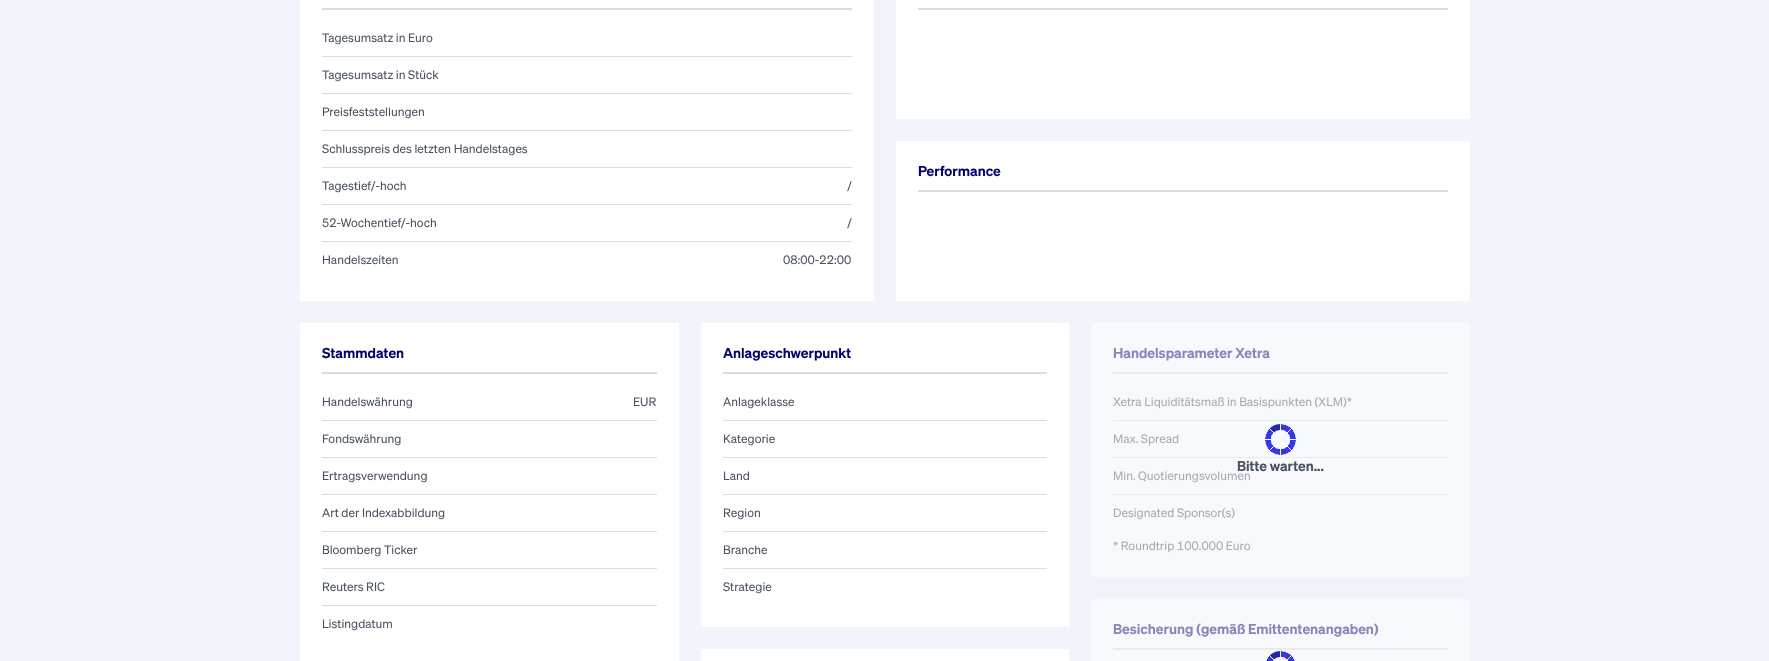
<svg xmlns="http://www.w3.org/2000/svg" width="1769" height="661" viewBox="0 0 1769 661">
  <rect width="100%" height="100%" fill="#f1f4fb"/>
  <path d="M300 0h574v301H300z" fill="#fff"/>
  <path d="M322 8h530v2H322z" fill="#ddd"/>
  <path d="M322 56h530v1H322z" fill="#ddd"/>
  <path d="M322 93h530v1H322z" fill="#ddd"/>
  <path d="M322 130h530v1H322z" fill="#ddd"/>
  <path d="M322 167h530v1H322z" fill="#ddd"/>
  <path d="M322 204h530v1H322z" fill="#ddd"/>
  <path d="M322 241h530v1H322z" fill="#ddd"/>
  <path d="M896 0h574v119H896z" fill="#fff"/>
  <path d="M918 8h530v2H918z" fill="#ddd"/>
  <path d="M896 141h574v160H896z" fill="#fff"/>
  <path d="M918 190h530v2H918z" fill="#ddd"/>
  <path d="M300 323h379v338H300z" fill="#fff"/>
  <path d="M322 372h335v2H322z" fill="#ddd"/>
  <path d="M322 420h335v1H322z" fill="#ddd"/>
  <path d="M322 457h335v1H322z" fill="#ddd"/>
  <path d="M322 494h335v1H322z" fill="#ddd"/>
  <path d="M322 531h335v1H322z" fill="#ddd"/>
  <path d="M322 568h335v1H322z" fill="#ddd"/>
  <path d="M322 605h335v1H322z" fill="#ddd"/>
  <path d="M701 323h368v304H701z" fill="#fff"/>
  <path d="M723 372h324v2H723z" fill="#ddd"/>
  <path d="M723 420h324v1H723z" fill="#ddd"/>
  <path d="M723 457h324v1H723z" fill="#ddd"/>
  <path d="M723 494h324v1H723z" fill="#ddd"/>
  <path d="M723 531h324v1H723z" fill="#ddd"/>
  <path d="M723 568h324v1H723z" fill="#ddd"/>
  <path d="M701 649h368v12H701z" fill="#fff"/>
  <path d="M1091 323h379v254H1091z" fill="#f7f9fd"/>
  <path d="M1113 372h335v2H1113z" fill="#e8eaee"/>
  <path d="M1113 420h335v1H1113z" fill="#e8eaee"/>
  <path d="M1113 457h335v1H1113z" fill="#e8eaee"/>
  <path d="M1113 494h335v1H1113z" fill="#e8eaee"/>
  <image x="1265" y="424" width="31" height="31" href="img/1.png"/>
  <path d="M1091 599h379v62H1091z" fill="#f7f9fd"/>
  <path d="M1113 648h335v2H1113z" fill="#e8eaee"/>
  <image x="1266" y="651" width="29" height="10" href="img/2.png"/>
  <g font-family="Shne" font-size="12" fill="#49525f">
    <text x="322" y="42">Tagesumsatz in Euro</text>
    <text x="322" y="79">Tagesumsatz in Stück</text>
    <text x="322" y="116">Preisfeststellungen</text>
    <text x="322" y="153">Schlusspreis des letzten Handelstages</text>
    <text x="322" y="190">Tagestief/-hoch</text>
    <text x="847" y="190">/</text>
  </g>
  <text x="322" y="227" font-family="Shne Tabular" font-size="12" fill="#49525f">52-Wochentief/-hoch</text>
  <g font-family="Shne" font-size="12" fill="#49525f">
    <text x="847" y="227">/</text>
    <text x="322" y="264">Handelszeiten</text>
  </g>
  <text x="783" y="264" font-family="Shne Tabular" font-size="12" fill="#49525f">08:00-22:00</text>
  <g font-family="Shne" font-size="14" font-weight="600" fill="#000069">
    <text x="918" y="176">Performance</text>
    <text x="322" y="358">Stammdaten</text>
  </g>
  <g font-family="Shne" font-size="12" fill="#49525f">
    <text x="322" y="406">Handelswährung</text>
    <text x="633" y="406">EUR</text>
    <text x="322" y="443">Fondswährung</text>
    <text x="322" y="480">Ertragsverwendung</text>
    <text x="322" y="517">Art der Indexabbildung</text>
    <text x="322" y="554">Bloomberg Ticker</text>
    <text x="322" y="591">Reuters RIC</text>
    <text x="322" y="628">Listingdatum</text>
  </g>
  <text x="723" y="358" font-family="Shne" font-size="14" font-weight="600" fill="#000069">Anlageschwerpunkt</text>
  <g font-family="Shne" font-size="12" fill="#49525f">
    <text x="723" y="406">Anlageklasse</text>
    <text x="723" y="443">Kategorie</text>
    <text x="723" y="480">Land</text>
    <text x="723" y="517">Region</text>
    <text x="723" y="554">Branche</text>
    <text x="723" y="591">Strategie</text>
  </g>
  <text x="1113" y="358" font-family="Shne" font-size="14" font-weight="600" fill="#8586b9">Handelsparameter Xetra</text>
  <g font-family="Shne" font-size="12" fill="#a5abb5">
    <text x="1113" y="406">Xetra Liquiditätsmaß in Basispunkten (XLM)*</text>
    <text x="1113" y="443">Max. Spread</text>
    <text x="1113" y="480">Min. Quotierungsvolumen</text>
    <text x="1113" y="517">Designated Sponsor(s)</text>
  </g>
  <text x="1237" y="471" font-family="Shne" font-size="14" font-weight="600" fill="#49525f">Bitte warten...</text>
  <text x="1113" y="550" font-family="Shne Tabular" font-size="12" fill="#a5abb5">* Roundtrip 100.000 Euro</text>
  <text x="1113" y="634" font-family="Shne" font-size="14" font-weight="600" fill="#8586b9">Besicherung (gemäß Emittentenangaben)</text>
</svg>
